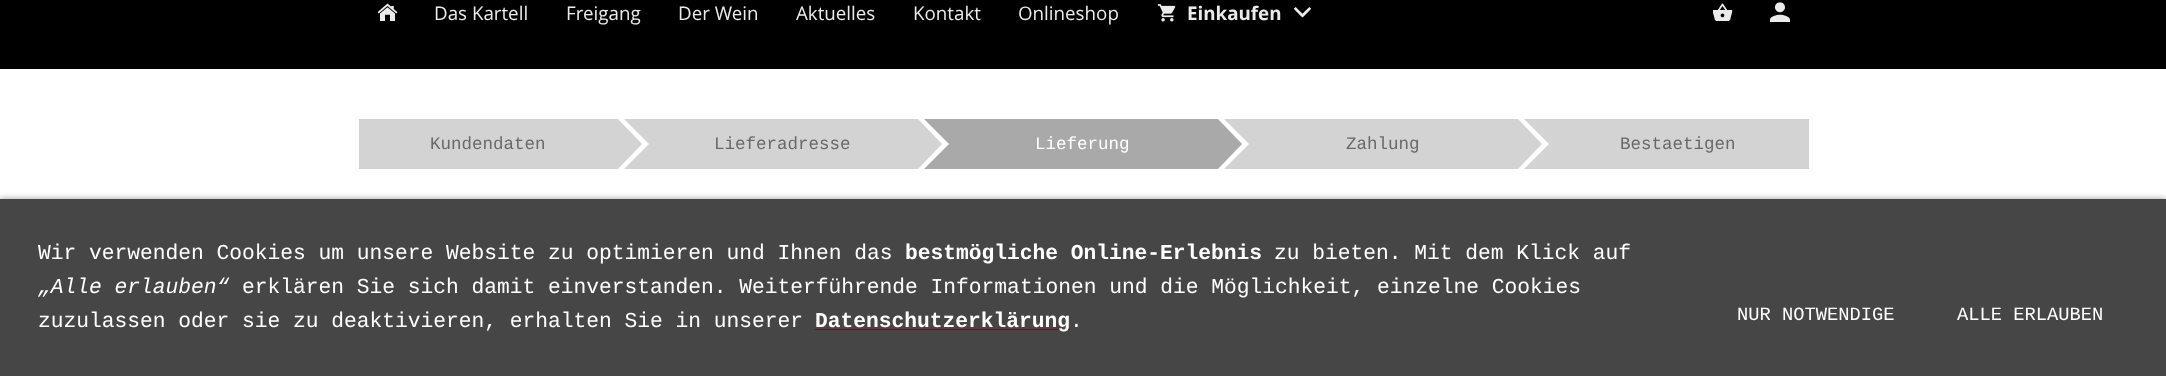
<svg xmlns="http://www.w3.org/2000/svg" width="2166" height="376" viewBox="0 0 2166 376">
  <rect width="100%" height="100%" fill="#fff"/>
  <path d="M0 0h2166v69H0z" fill="#000"/>
  <image x="378" y="3" width="20" height="18" href="img/1.png"/>
  <image x="1293" y="7" width="19" height="11" href="img/2.png"/>
  <image x="1157" y="4" width="19" height="18" href="img/3.png"/>
  <image x="1713" y="3" width="20" height="18" href="img/4.png"/>
  <image x="1770" y="2" width="20" height="20" href="img/5.png"/>
  <path d="M359 119h259v50H359z" fill="#d3d3d3"/>
  <path d="M618 169V119L642 144Z" fill="#d3d3d3"/>
  <path d="M624 119H674L649 144Z" fill="#d3d3d3"/>
  <path d="M649 119h25v50H649z" fill="#d3d3d3"/>
  <path d="M674 169H624L649 144Z" fill="#d3d3d3"/>
  <path d="M674 119h244v50H674z" fill="#d3d3d3"/>
  <path d="M918 169V119L942 144Z" fill="#d3d3d3"/>
  <path d="M924 119H974L949 144Z" fill="#a9a9a9"/>
  <path d="M949 119h25v50H949z" fill="#a9a9a9"/>
  <path d="M974 169H924L949 144Z" fill="#a9a9a9"/>
  <path d="M974 119h244v50H974z" fill="#a9a9a9"/>
  <path d="M1218 169V119L1242 144Z" fill="#a9a9a9"/>
  <path d="M1224 119H1274L1249 144Z" fill="#d3d3d3"/>
  <path d="M1249 119h25v50H1249z" fill="#d3d3d3"/>
  <path d="M1274 169H1224L1249 144Z" fill="#d3d3d3"/>
  <path d="M1274 119h244v50H1274z" fill="#d3d3d3"/>
  <path d="M1518 169V119L1542 144Z" fill="#d3d3d3"/>
  <path d="M1524 119H1574L1549 144Z" fill="#d3d3d3"/>
  <path d="M1549 119h25v50H1549z" fill="#d3d3d3"/>
  <path d="M1574 169H1524L1549 144Z" fill="#d3d3d3"/>
  <path d="M1574 119h235v50H1574z" fill="#d3d3d3"/>
  <path d="M0 199h2166v177H0z" fill="#00000066" filter="blur(3px)"/>
  <path d="M0 199h2166v177H0z" fill="#464646"/>
  <path d="M815 329h255v1H815z" fill="#72100f"/>
  <g font-family="Open Sans" font-size="18.75" fill="#ebebeb">
    <text x="434" y="20">Das Kartell</text>
    <text x="566" y="20">Freigang</text>
    <text x="678" y="20">Der Wein</text>
    <text x="796" y="20">Aktuelles</text>
    <text x="913" y="20">Kontakt</text>
    <text x="1018" y="20">Onlineshop</text>
  </g>
  <text x="1187" y="20" font-family="Open Sans" font-size="18.75" font-weight="bold" fill="#ebebeb">Einkaufen</text>
  <g font-family="Liberation Mono" font-size="17.5" fill="#696969">
    <text x="430" y="149">Kundendaten</text>
    <text x="714" y="149">Lieferadresse</text>
  </g>
  <text x="1035" y="149" font-family="Liberation Mono" font-size="17.5" fill="#fff">Lieferung</text>
  <g font-family="Liberation Mono" font-size="17.5" fill="#696969">
    <text x="1346" y="149">Zahlung</text>
    <text x="1620" y="149">Bestaetigen</text>
  </g>
  <text x="38" y="259" font-family="Liberation Mono" font-size="21.25" fill="#fff">Wir verwenden Cookies um unsere Website zu optimieren und Ihnen das</text>
  <text x="905" y="259" font-family="Liberation Mono" font-size="21.25" font-weight="bold" fill="#fff">bestmögliche Online-Erlebnis</text>
  <text x="1274" y="259" font-family="Liberation Mono" font-size="21.25" fill="#fff">zu bieten. Mit dem Klick auf</text>
  <text x="38" y="293" font-family="Liberation Mono" font-size="21.25" font-style="italic" fill="#fff">„Alle erlauben“</text>
  <g font-family="Liberation Mono" font-size="21.25" fill="#fff">
    <text x="242" y="293">erklären Sie sich damit einverstanden. Weiterführende Informationen und die Möglichkeit, einzelne Cookies</text>
    <text x="38" y="327">zuzulassen oder sie zu deaktivieren, erhalten Sie in unserer</text>
  </g>
  <text x="815" y="327" font-family="Liberation Mono" font-size="21.25" font-weight="bold" fill="#fff">Datenschutzerklärung</text>
  <text x="1070" y="327" font-family="Liberation Mono" font-size="21.25" fill="#fff">.</text>
  <g font-family="Liberation Mono" font-size="18.75" fill="#fff">
    <text x="1737" y="320">NUR NOTWENDIGE</text>
    <text x="1957" y="320">ALLE ERLAUBEN</text>
  </g>
</svg>
